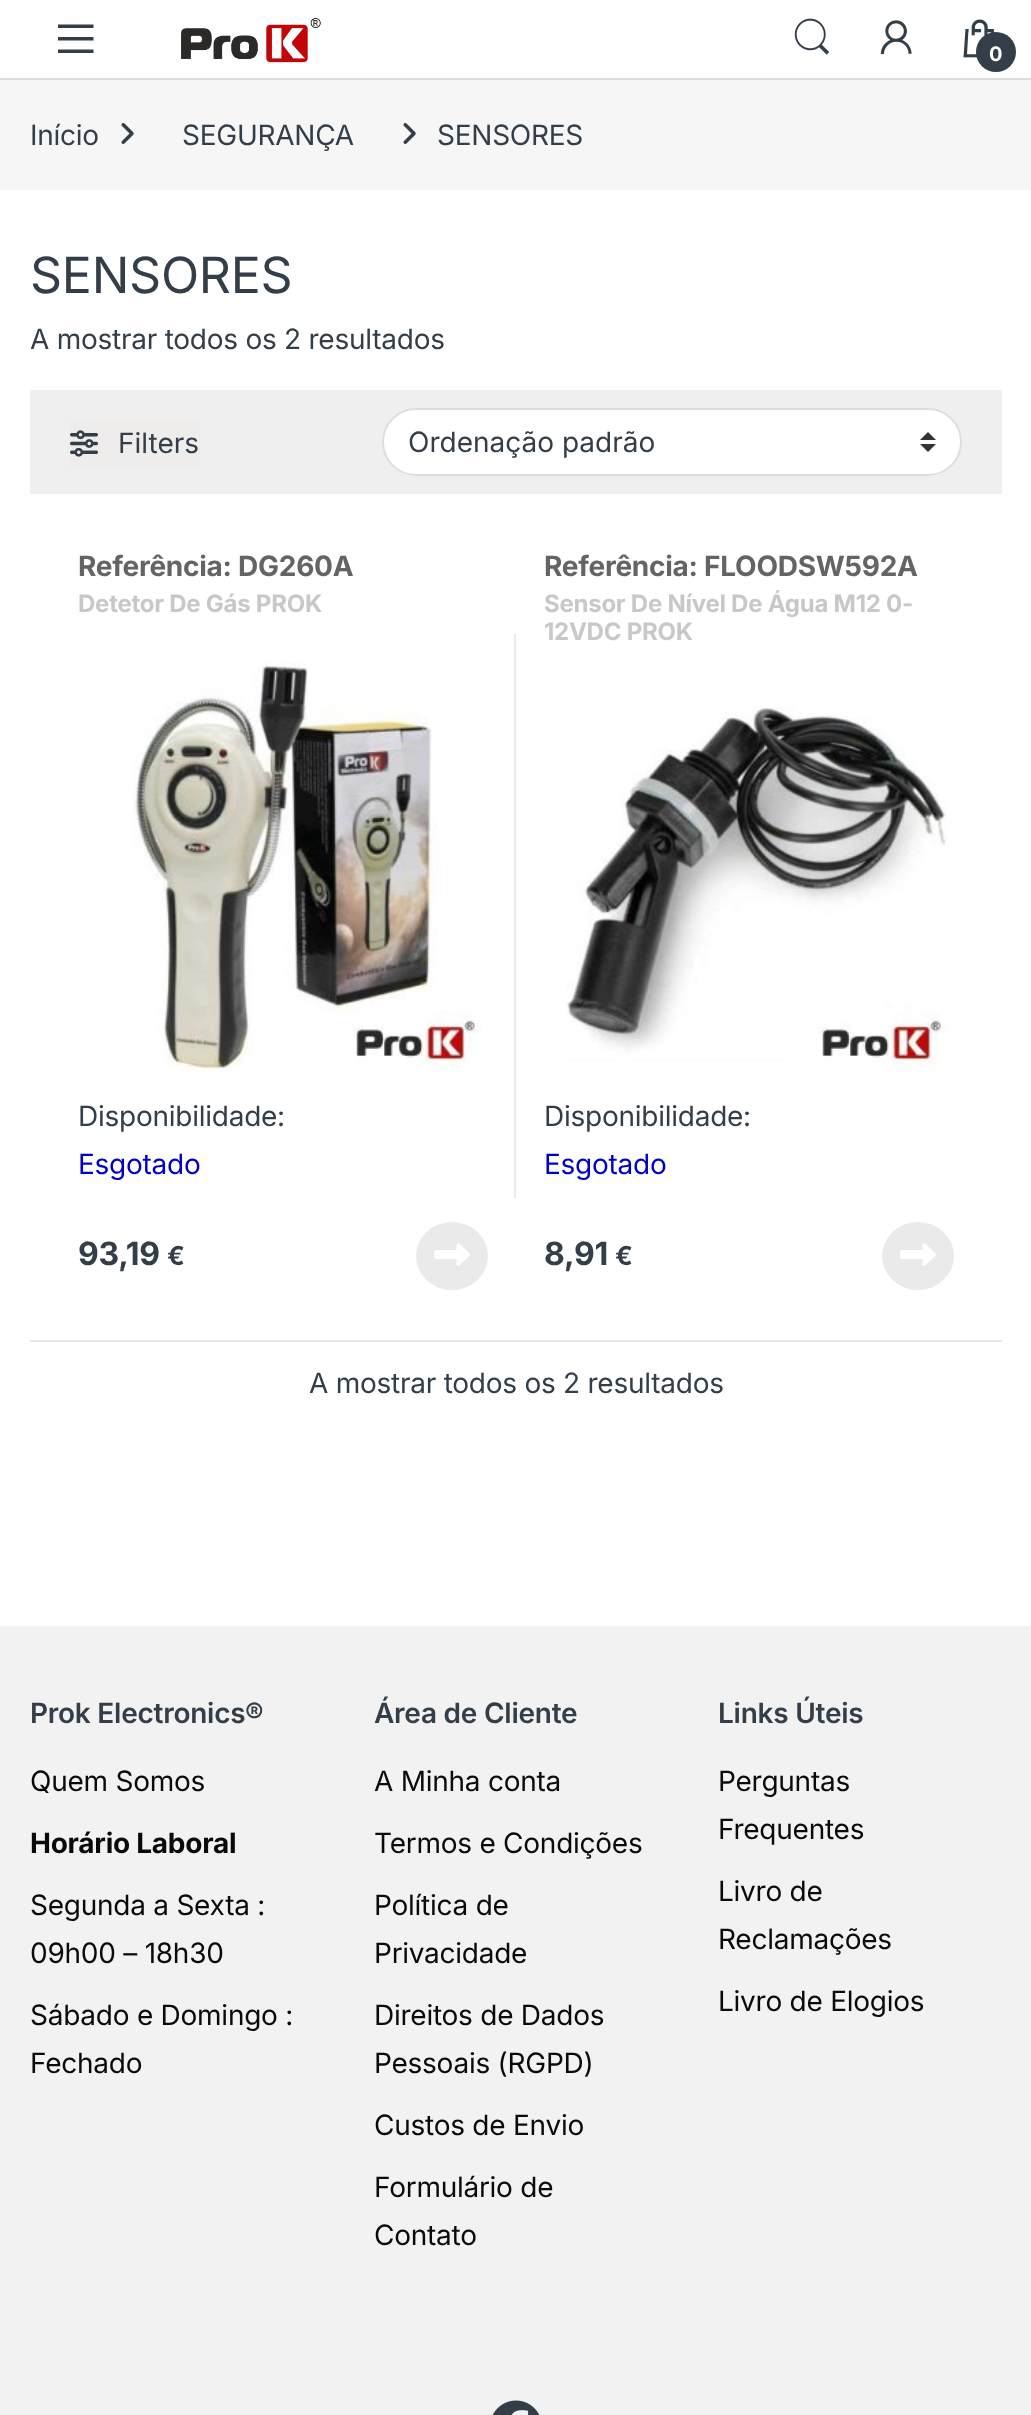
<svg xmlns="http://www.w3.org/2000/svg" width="1031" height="2415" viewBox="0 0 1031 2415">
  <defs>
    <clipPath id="clip1"><path d="M544 590h410v56H544z"/></clipPath>
  </defs>
  <rect width="100%" height="100%" fill="#fff"/>
  <path d="M0 78h1031v2H0z" fill="#ddd"/>
  <path d="M58 53V49.5H93.5V53ZM58 37H93.5V40.5H58ZM58 24.5H93.5V28H58Z" fill="#333e48"/>
  <image x="181" y="17" width="140" height="46" href="img/1.png"/>
  <image x="794" y="18" width="36" height="37" href="img/2.png"/>
  <image x="880" y="20" width="32" height="35" href="img/3.png"/>
  <image x="963" y="19" width="32" height="39" href="img/4.png"/>
  <circle cx="996" cy="52" r="20" fill="#333e48"/>
  <path d="M0 80h1031v110H0z" fill="#f7f6f6"/>
  <image x="121" y="123" width="13" height="21" href="img/5.png"/>
  <image x="403" y="123" width="13" height="21" href="img/5.png"/>
  <path d="M30 390h972v104H30z" fill="#efefef"/>
  <path d="M70 420h130v48H70z" fill="#efecec"/>
  <image x="70" y="430" width="28" height="27" href="img/6.png"/>
  <rect x="382" y="408" width="580" height="68" rx="34" fill="#fff"/>
  <image x="920" y="432" width="16" height="20" href="img/7.png"/>
  <rect x="383" y="409" width="578" height="66" rx="33" fill="none" stroke="#ddd" stroke-width="2"/>
  <image x="133" y="662" width="349" height="410" href="img/8.png"/>
  <ellipse cx="452" cy="1256" rx="36" ry="34" fill="#eaeaea"/>
  <image x="434" y="1243" width="36" height="23" href="img/9.png"/>
  <path d="M514 634h2v564H514z" fill="#eaeaea"/>
  <image x="566" y="706" width="382" height="366" href="img/10.png"/>
  <ellipse cx="918" cy="1256" rx="36" ry="34" fill="#eaeaea"/>
  <image x="900" y="1243" width="36" height="23" href="img/9.png"/>
  <path d="M30 1340h972v2H30z" fill="#e7e7e7"/>
  <path d="M0 1626h1031v789H0z" fill="#f2f2f2"/>
  <image x="492" y="2400" width="48" height="15" href="img/11.png"/>
  <text x="989" y="61" font-family="Inter" font-size="20" font-weight="bold" letter-spacing="-0.25" fill="#fff">0</text>
  <g font-family="Inter" font-size="28" letter-spacing="-0.25" fill="#333e48">
    <text x="30" y="145">Início</text>
    <text x="182" y="145">SEGURANÇA</text>
    <text x="437" y="145">SENSORES</text>
  </g>
  <text x="30" y="293" font-family="Inter" font-size="50" letter-spacing="-0.25" fill="#333e48">SENSORES</text>
  <text x="30" y="349" font-family="Inter" font-size="28" letter-spacing="-0.25" fill="#333e48">A mostrar todos os 2 resultados</text>
  <g font-family="Inter" font-size="28" fill="#333e48">
    <text x="118" y="453">Filters</text>
    <text x="408" y="452">Ordenação padrão</text>
  </g>
  <text x="78" y="576" font-family="Inter" font-size="28" font-weight="bold" letter-spacing="-0.25" fill="#646464">Referência: DG260A</text>
  <text x="78" y="612" font-family="Inter" font-size="24" font-weight="bold" letter-spacing="-0.25" fill="#c8c8c8">Detetor De Gás PROK</text>
  <text x="78" y="1126" font-family="Inter" font-size="28" letter-spacing="-0.25" fill="#333e48">Disponibilidade:</text>
  <text x="78" y="1174" font-family="Inter" font-size="28" letter-spacing="-0.25" fill="#0000cd">Esgotado</text>
  <text x="78" y="1265" font-family="Inter" font-size="32" font-weight="bold" letter-spacing="-0.25" fill="#333e48">93,19</text>
  <text x="167" y="1265" font-family="Inter" font-size="26" font-weight="bold" letter-spacing="-0.25" fill="#333e48">€</text>
  <text x="544" y="576" font-family="Inter" font-size="28" font-weight="bold" letter-spacing="-0.25" fill="#646464">Referência: FLOODSW592A</text>
  <g clip-path="url(#clip1)">
    <text x="544" y="612" font-family="Inter" font-size="24" font-weight="bold" letter-spacing="-0.25" fill="#c8c8c8">Sensor De Nível De Água M12 0-</text>
  </g>
  <text x="544" y="640" font-family="Inter" font-size="24" font-weight="bold" letter-spacing="-0.25" fill="#c8c8c8">12VDC PROK</text>
  <text x="544" y="1126" font-family="Inter" font-size="28" letter-spacing="-0.25" fill="#333e48">Disponibilidade:</text>
  <text x="544" y="1174" font-family="Inter" font-size="28" letter-spacing="-0.25" fill="#0000cd">Esgotado</text>
  <text x="544" y="1265" font-family="Inter" font-size="32" font-weight="bold" letter-spacing="-0.25" fill="#333e48">8,91</text>
  <text x="615" y="1265" font-family="Inter" font-size="26" font-weight="bold" letter-spacing="-0.25" fill="#333e48">€</text>
  <text x="309" y="1393" font-family="Inter" font-size="28" letter-spacing="-0.25" fill="#333e48">A mostrar todos os 2 resultados</text>
  <text x="30" y="1723" font-family="Inter" font-size="28" font-weight="600" letter-spacing="-0.25" fill="#333e48">Prok Electronics®</text>
  <text x="30" y="1791" font-family="Inter" font-size="28" letter-spacing="-0.25" fill="#0a0a0a">Quem Somos</text>
  <text x="30" y="1853" font-family="Inter" font-size="28" font-weight="bold" letter-spacing="-0.25" fill="#0a0a0a">Horário Laboral</text>
  <g font-family="Inter" font-size="28" letter-spacing="-0.25" fill="#0a0a0a">
    <text x="30" y="1915">Segunda a Sexta :</text>
    <text x="30" y="1963">09h00 – 18h30</text>
    <text x="30" y="2025">Sábado e Domingo :</text>
    <text x="30" y="2073">Fechado</text>
  </g>
  <text x="374" y="1723" font-family="Inter" font-size="28" font-weight="600" letter-spacing="-0.25" fill="#333e48">Área de Cliente</text>
  <g font-family="Inter" font-size="28" letter-spacing="-0.25" fill="#0a0a0a">
    <text x="374" y="1791">A Minha conta</text>
    <text x="374" y="1853">Termos e Condições</text>
    <text x="374" y="1915">Política de</text>
    <text x="374" y="1963">Privacidade</text>
    <text x="374" y="2025">Direitos de Dados</text>
    <text x="374" y="2073">Pessoais (RGPD)</text>
    <text x="374" y="2135">Custos de Envio</text>
    <text x="374" y="2197">Formulário de</text>
    <text x="374" y="2245">Contato</text>
  </g>
  <text x="718" y="1723" font-family="Inter" font-size="28" font-weight="600" letter-spacing="-0.25" fill="#333e48">Links Úteis</text>
  <g font-family="Inter" font-size="28" letter-spacing="-0.25" fill="#0a0a0a">
    <text x="718" y="1791">Perguntas</text>
    <text x="718" y="1839">Frequentes</text>
    <text x="718" y="1901">Livro de</text>
    <text x="718" y="1949">Reclamações</text>
    <text x="718" y="2011">Livro de Elogios</text>
  </g>
</svg>
